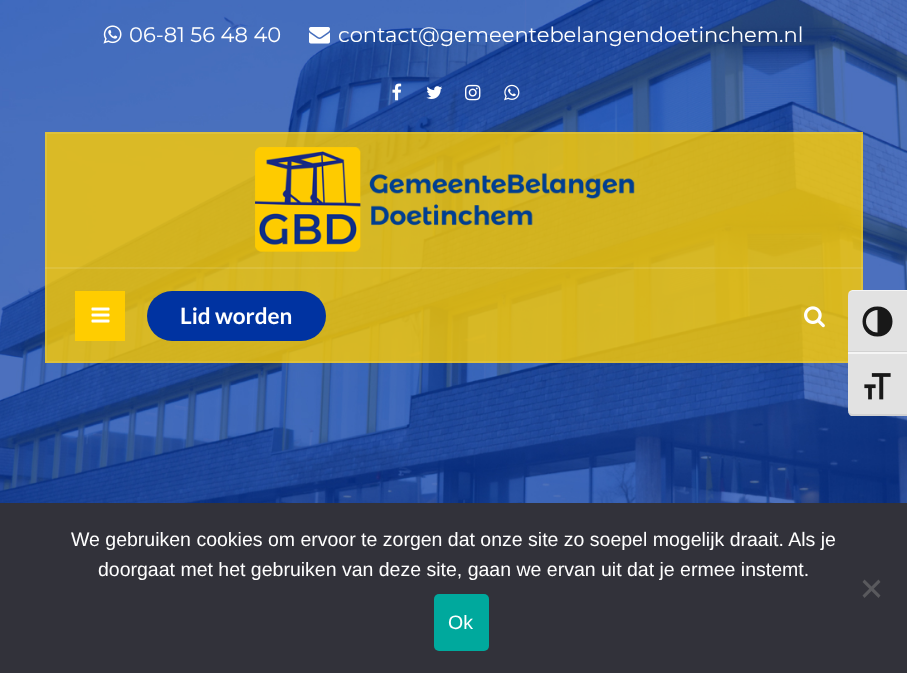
<svg xmlns="http://www.w3.org/2000/svg" width="907" height="673" viewBox="0 0 907 673">
  <rect width="100%" height="100%" fill="#fff"/>
  <image x="0" y="0" width="907" height="503" href="img/1.png"/>
  <image x="103" y="25" width="19" height="19" href="img/2.png"/>
  <image x="309" y="27" width="21" height="17" href="img/3.png"/>
  <image x="392" y="83" width="10" height="18" href="img/4.png"/>
  <image x="426" y="86" width="17" height="13" href="img/5.png"/>
  <image x="465" y="84" width="16" height="17" href="img/6.png"/>
  <image x="504" y="84" width="16" height="17" href="img/7.png"/>
  <path d="M45 132h818v231H45z" fill="#ffcd00cc"/>
  <path d="M46 133h816v229H46z" fill="none" stroke="#ffffff1a" stroke-width="2"/>
  <path d="M45 267h818v2H45z" fill="#ffffff1a"/>
  <image x="255" y="147" width="380" height="105" href="img/8.png"/>
  <path d="M75 291h50v50H75z" fill="#ffcd00"/>
  <image x="91" y="307" width="19" height="16" href="img/9.png"/>
  <rect x="147" y="291" width="179" height="50" rx="25" fill="#0033a1"/>
  <image x="804" y="306" width="21" height="22" href="img/10.png"/>
  <path d="M854 290H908V353H848V296C848 292.5 850.5 290 854 290Z" fill="#e2e2e2"/>
  <path d="M854 290H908V291H854C850 291 848 293 848 296C848 292 850 290 854 290Z" fill="#f5f5f5"/>
  <path d="M848 351h59v1H848z" fill="#d2d2d2"/>
  <path d="M877.5 306.5C857.5 306.5 857.5 336.5 877.5 336.5C897.5 336.5 897.5 306.5 877.5 306.5ZM866 321.5C866 315 871.5 310 877.5 310V332.5C871.5 332.5 866 327.5 866 321.5Z" fill="#181818"/>
  <path d="M848 353H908V416H854C850.5 416 848 413.5 848 410Z" fill="#e2e2e2"/>
  <path d="M848 352h59v2H848z" fill="#f5f5f5"/>
  <path d="M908 416H851C849 415 848 412 848 410C848 412 850 414 854 414H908Z" fill="#d2d2d2"/>
  <image x="864" y="373" width="27" height="27" href="img/11.png"/>
  <path d="M0 503h907v170H0z" fill="#32323a"/>
  <path d="M878.5 579.5L880.5 582L864.5 598L862.5 595.5Z" fill="#59595d"/>
  <path d="M862.5 582L864.5 579.5L880.5 595.5L878.5 598Z" fill="#59595d"/>
  <rect x="434" y="594" width="55" height="57" rx="5" fill="#00a99d"/>
  <g font-family="Montserrat" font-size="21" fill="#fff">
    <text x="129" y="42">06-81 56 48 40</text>
    <text x="338" y="42">contact@gemeentebelangendoetinchem.nl</text>
  </g>
  <text x="180" y="324" font-family="Lato" font-size="22.5" font-weight="bold" fill="#fff">Lid worden</text>
  <g font-family="Liberation Sans" font-size="19.5" fill="#fff">
    <text x="71" y="546">We gebruiken cookies om ervoor te zorgen dat onze site zo soepel mogelijk draait. Als je</text>
    <text x="98" y="576">doorgaat met het gebruiken van deze site, gaan we ervan uit dat je ermee instemt.</text>
    <text x="448" y="629">Ok</text>
  </g>
</svg>
